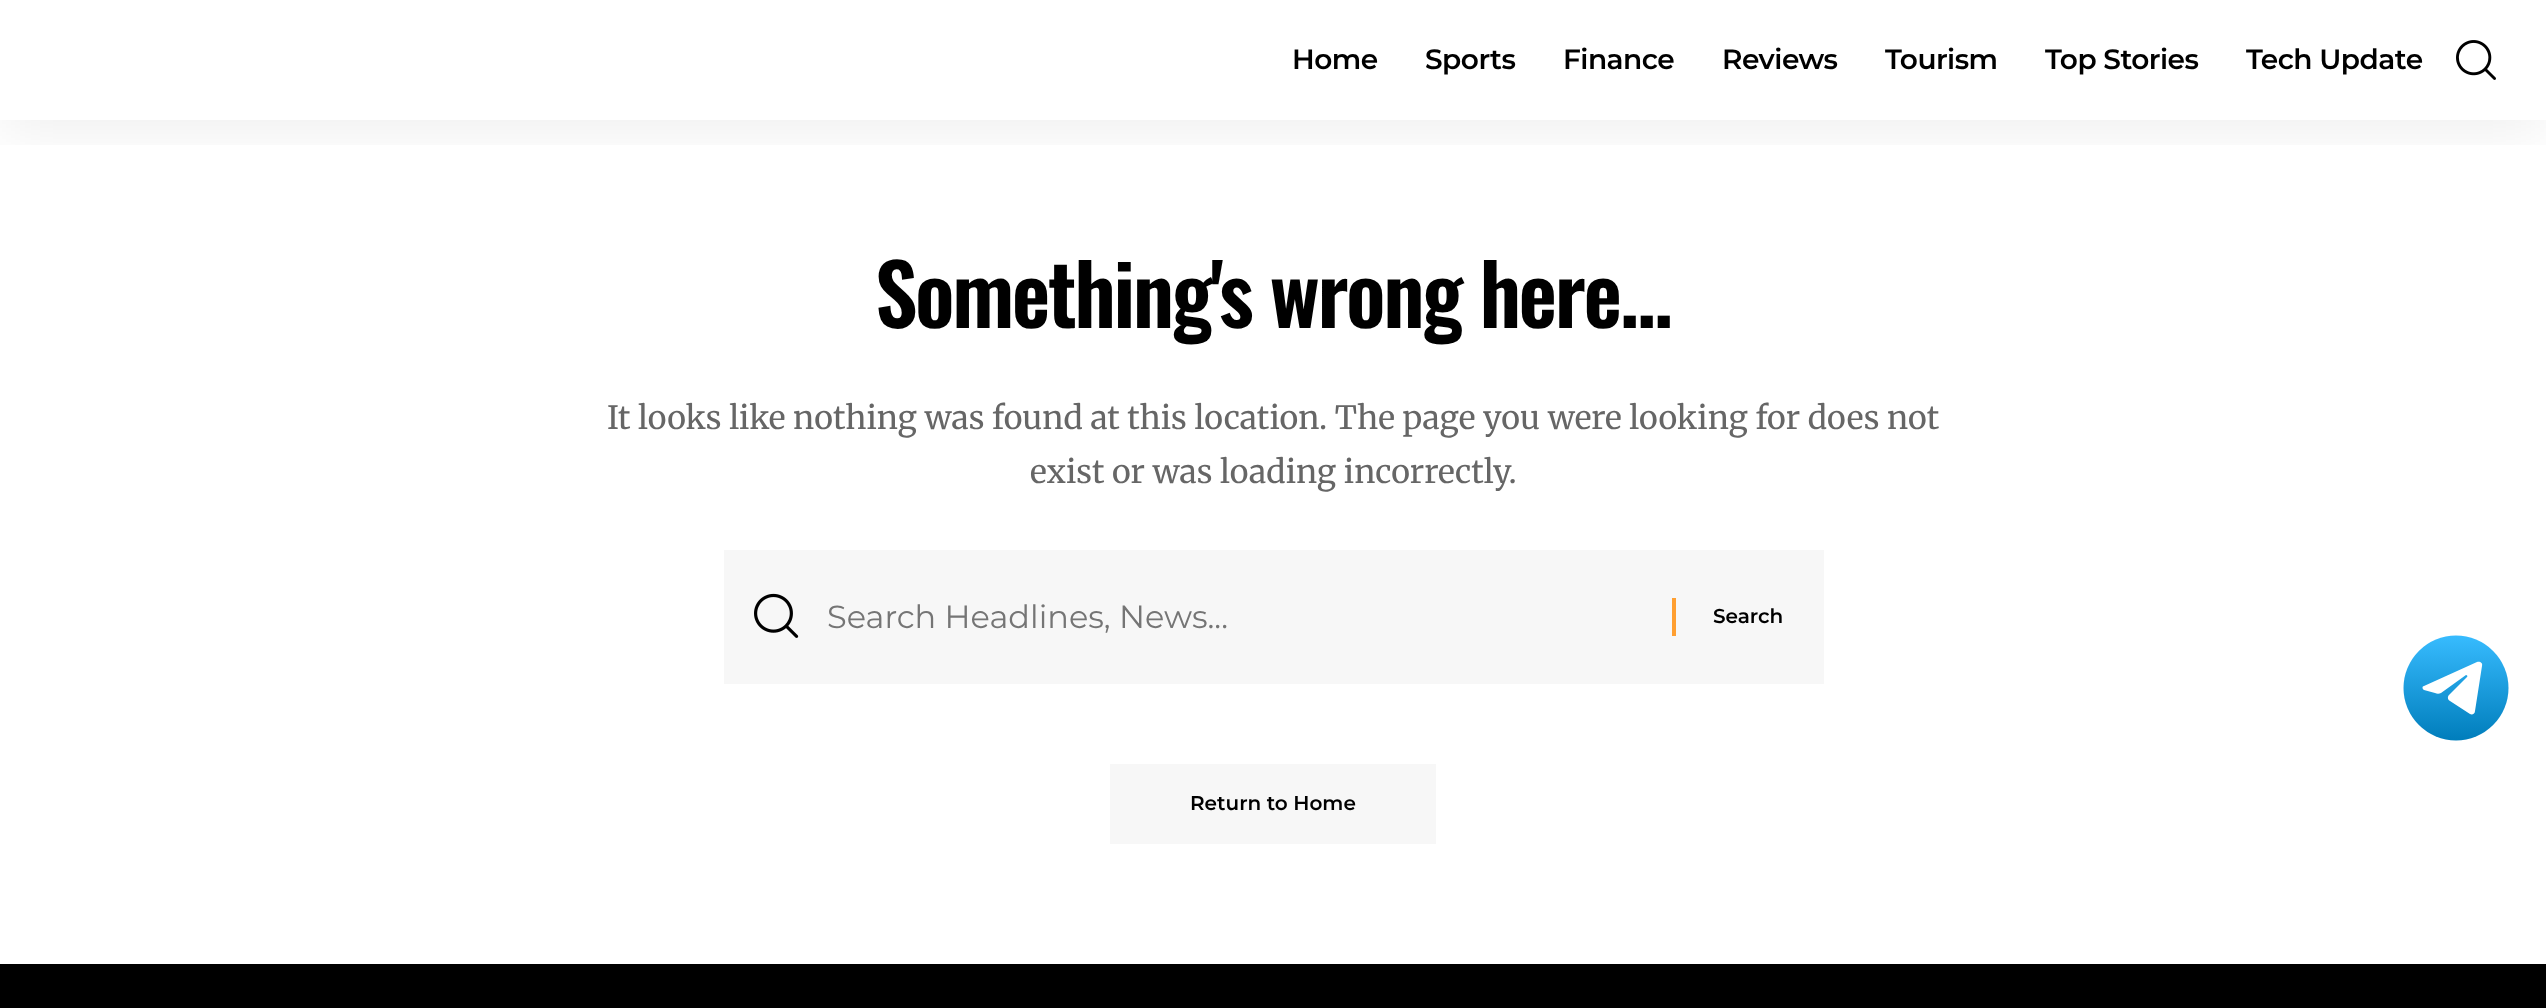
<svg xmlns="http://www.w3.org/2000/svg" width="2546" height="1008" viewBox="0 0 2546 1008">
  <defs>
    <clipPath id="clip1"><path d="M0 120h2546v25H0z"/></clipPath>
    <linearGradient id="g1" gradientUnits="userSpaceOnUse" x1="2456" y1="636" x2="2456" y2="741"><stop offset="0" stop-color="#37bbfe"/><stop offset="1" stop-color="#007dbb"/></linearGradient>
  </defs>
  <rect width="100%" height="100%" fill="#fff"/>
  <g clip-path="url(#clip1)">
    <path d="M0 8h2546v120H0z" fill="#00000012" filter="blur(30px)"/>
  </g>
  <image x="2456" y="40" width="40" height="40" href="img/1.png"/>
  <path d="M724 550h1100v134H724z" fill="#f7f7f7"/>
  <image x="754" y="593" width="45" height="45" href="img/2.png"/>
  <path d="M1672 598h4v38H1672z" fill="#ff9f31"/>
  <path d="M1110 764h326v80H1110z" fill="#f7f7f7"/>
  <path d="M0 964h2546v44H0z" fill="#000"/>
  <circle cx="2456" cy="688" r="52.5" fill="url(#g1)"/>
  <path d="M2482 666C2483 663 2480 661 2477 662L2424 686C2422 686 2422 689 2424 690L2435 693C2437 694 2439 694 2441 693L2466 675C2467 675 2468 676 2467 677L2449 695C2447 697 2448 700 2450 701L2470 714C2472 715 2475 714 2475 711Z" fill="#fff"/>
  <g font-family="Montserrat" font-size="28" font-weight="600" letter-spacing="-0.5" fill="#000">
    <text x="1292" y="69">Home</text>
    <text x="1425" y="69">Sports</text>
    <text x="1563" y="69">Finance</text>
    <text x="1722" y="69">Reviews</text>
    <text x="1885" y="69">Tourism</text>
    <text x="2045" y="69">Top Stories</text>
    <text x="2246" y="69">Tech Update</text>
  </g>
  <text x="875" y="328" font-family="Oswald" font-size="84" font-weight="600" letter-spacing="-2.4" fill="#000">Something's wrong here...</text>
  <g font-family="Merriweather" font-size="32" fill="#666">
    <text x="607" y="429">It looks like nothing was found at this location. The page you were looking for does not</text>
    <text x="1030" y="483">exist or was loading incorrectly.</text>
  </g>
  <text x="827" y="628" font-family="Montserrat" font-size="32" fill="#757575">Search Headlines, News...</text>
  <g font-family="Montserrat" font-size="20" font-weight="600" fill="#000">
    <text x="1713" y="623">Search</text>
    <text x="1190" y="810">Return to Home</text>
  </g>
</svg>
